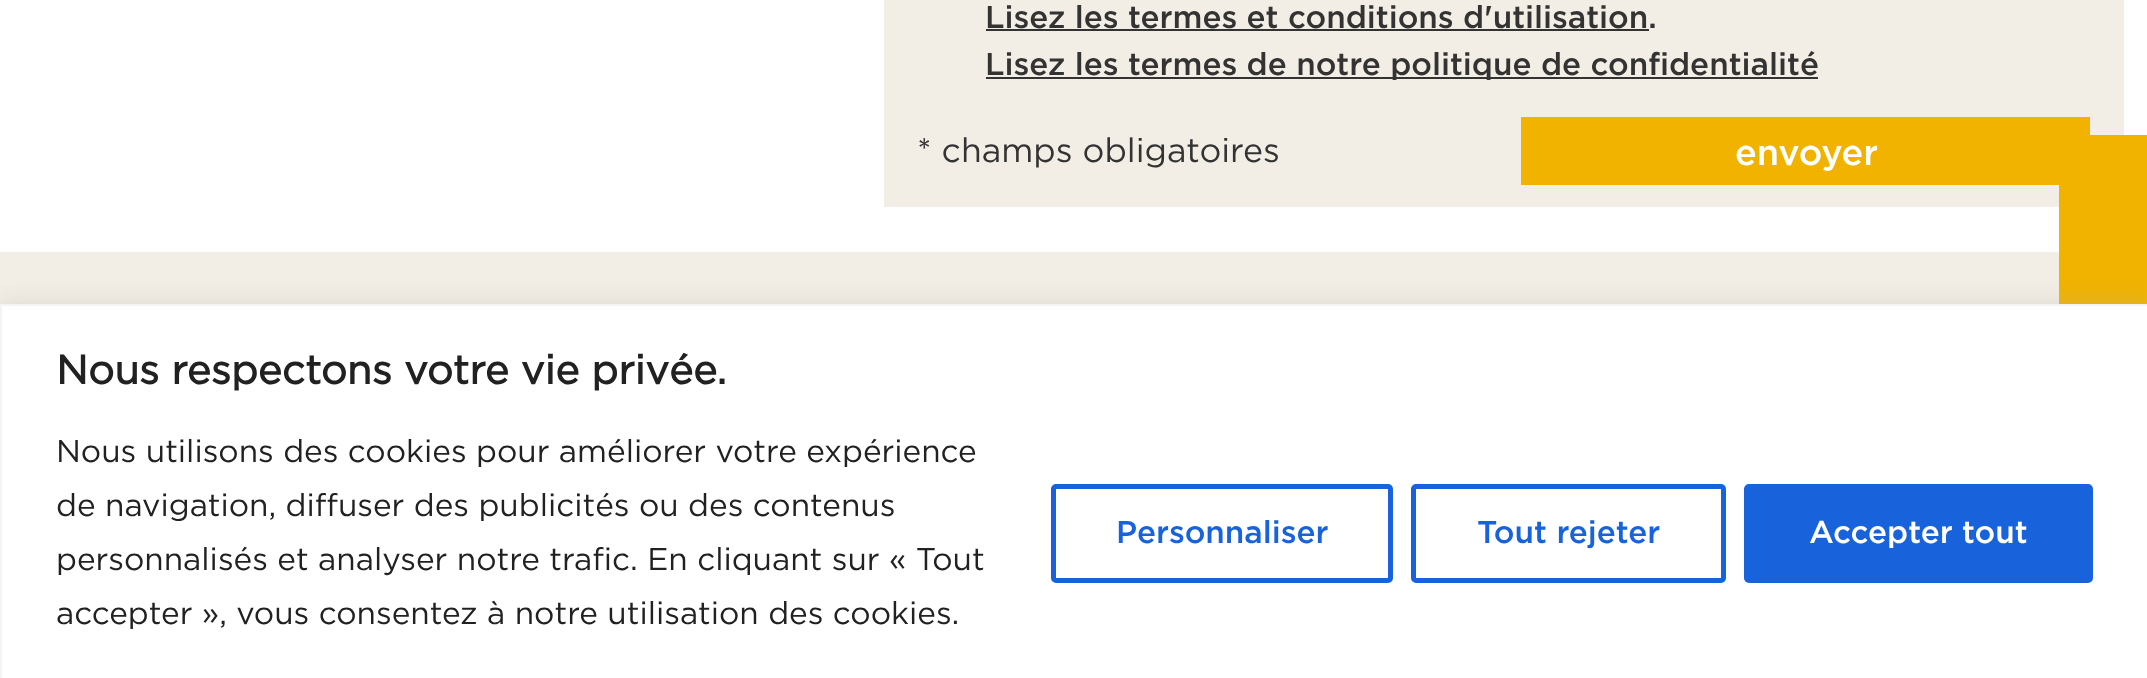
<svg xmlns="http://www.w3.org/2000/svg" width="2147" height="678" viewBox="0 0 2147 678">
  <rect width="100%" height="100%" fill="#fff"/>
  <path d="M884 0h1240v207H884z" fill="#f2eee5"/>
  <path d="M986 29h663v2H986z" fill="#333"/>
  <path d="M986 77h832v2H986z" fill="#333"/>
  <path d="M1521 117h569v68H1521z" fill="#f1b300"/>
  <path d="M0 252h2059v52H0z" fill="#f2eee5"/>
  <path d="M2059 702V157C2059 145 2069 135 2081 135H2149V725H2081C2069 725 2059 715 2059 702Z" fill="#f1b300"/>
  <path d="M0 302h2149v375H0z" fill="#acabab4d" filter="blur(11px)"/>
  <path d="M1 305h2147v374H1z" fill="#fff" stroke="#f4f4f4" stroke-width="2"/>
  <rect x="1053.5" y="486.5" width="337" height="94" rx="2.5" fill="none" stroke="#1863dc" stroke-width="5"/>
  <rect x="1413.5" y="486.5" width="310" height="94" rx="2.5" fill="none" stroke="#1863dc" stroke-width="5"/>
  <rect x="1746.5" y="486.5" width="344" height="94" rx="2.5" fill="#1863dc" stroke="#1863dc" stroke-width="5"/>
  <g font-family="Gotham" font-size="31.5" font-weight="500" fill="#333">
    <text x="985" y="28">Lisez les termes et conditions d'utilisation.</text>
    <text x="985" y="75">Lisez les termes de notre politique de confidentialité</text>
  </g>
  <text x="917" y="162" font-family="Gotham" font-size="33.75" fill="#333">* champs obligatoires</text>
  <text x="1735" y="165" font-family="Gotham" font-size="36" font-weight="500" fill="#fff">envoyer</text>
  <text x="56" y="384" font-family="Gotham" font-size="40.5" font-weight="bold" fill="#212121">Nous respectons votre vie privée.</text>
  <g font-family="Gotham" font-size="31.5" fill="#212121">
    <text x="56" y="462">Nous utilisons des cookies pour améliorer votre expérience</text>
    <text x="56" y="516">de navigation, diffuser des publicités ou des contenus</text>
    <text x="56" y="570">personnalisés et analyser notre trafic. En cliquant sur « Tout</text>
    <text x="56" y="624">accepter », vous consentez à notre utilisation des cookies.</text>
  </g>
  <g font-family="Gotham" font-size="31.5" font-weight="500" fill="#1863dc">
    <text x="1116" y="543">Personnaliser</text>
    <text x="1477" y="543">Tout rejeter</text>
  </g>
  <text x="1809" y="543" font-family="Gotham" font-size="31.5" font-weight="500" fill="#fff">Accepter tout</text>
</svg>
